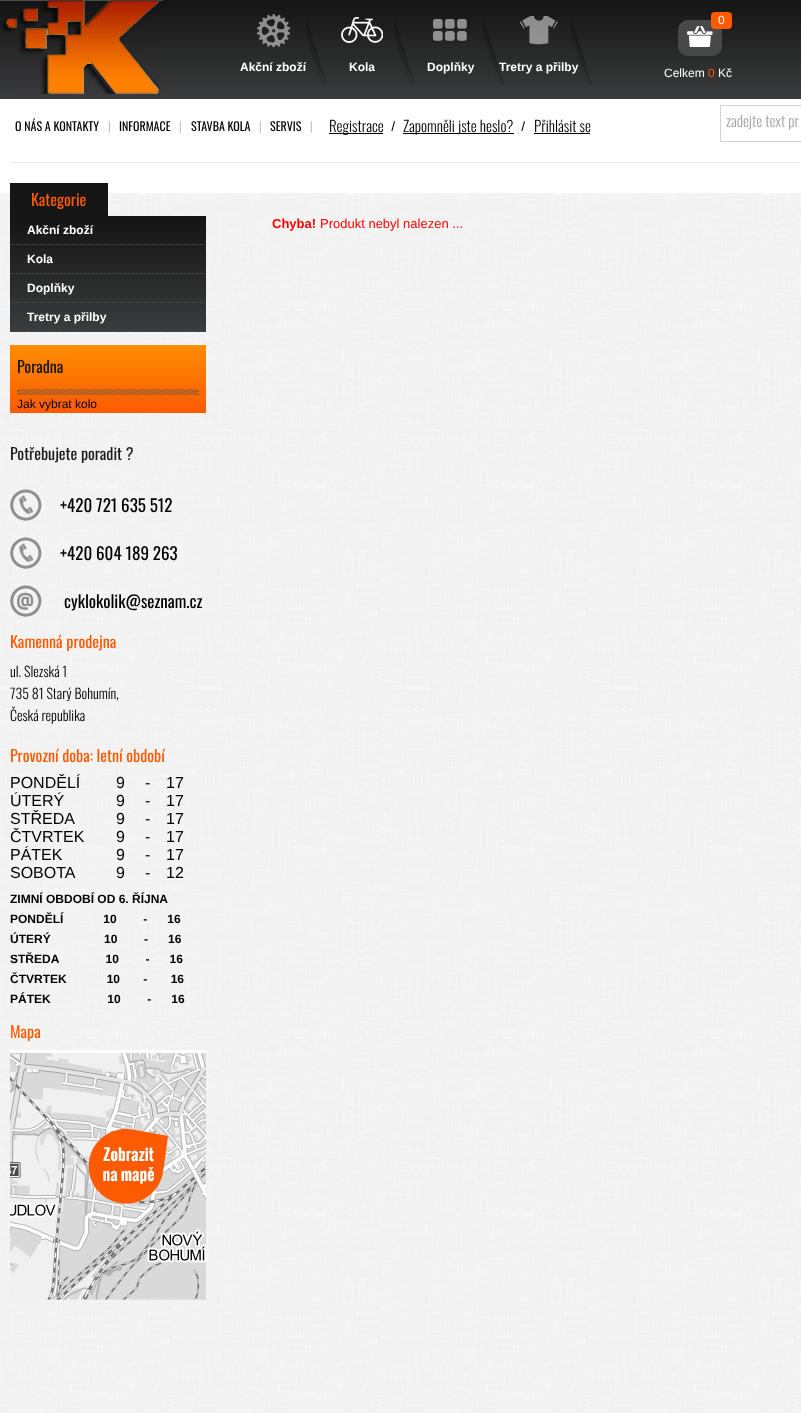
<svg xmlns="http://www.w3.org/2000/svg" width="801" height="1413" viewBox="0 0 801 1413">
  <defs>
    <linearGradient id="g1" gradientUnits="userSpaceOnUse" x1="490" y1="99" x2="490" y2="0"><stop offset="0" stop-color="#3b3c3d"/><stop offset="1" stop-color="#141414"/></linearGradient>
    <linearGradient id="g2" gradientUnits="userSpaceOnUse" x1="108" y1="332" x2="108" y2="216"><stop offset="0" stop-color="#3b3c3d"/><stop offset="1" stop-color="#141414"/></linearGradient>
    <linearGradient id="g3" gradientUnits="userSpaceOnUse" x1="108" y1="413" x2="108" y2="345"><stop offset="0" stop-color="#fd5a01"/><stop offset="1" stop-color="#fd8d01"/></linearGradient>
  </defs>
  <rect width="100%" height="100%" fill="#fff"/>
  <image x="0" y="193" width="801" height="1220" href="img/1.png"/>
  <path d="M0 0h801v99H0z" fill="url(#g1)"/>
  <image x="0" y="0" width="163" height="94" href="img/2.png"/>
  <image x="306" y="21" width="21" height="65" href="img/3.png"/>
  <image x="257" y="14" width="33" height="33" href="img/4.png"/>
  <image x="394" y="21" width="21" height="65" href="img/3.png"/>
  <image x="341" y="17" width="42" height="26" href="img/5.png"/>
  <image x="483" y="21" width="21" height="65" href="img/3.png"/>
  <image x="433" y="19" width="34" height="22" href="img/6.png"/>
  <image x="571" y="21" width="21" height="65" href="img/3.png"/>
  <image x="520" y="16" width="38" height="29" href="img/7.png"/>
  <image x="678" y="20" width="44" height="36" href="img/8.png"/>
  <rect x="711" y="12" width="21" height="17" rx="4" fill="#fd5a01"/>
  <path d="M329 133h54v1H329z" fill="#000"/>
  <path d="M403 133h111v1H403z" fill="#000"/>
  <path d="M534 133h56v1H534z" fill="#000"/>
  <path d="M720.5 105.5h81v36H720.5z" fill="none" stroke="#d0d0d0"/>
  <path d="M10 162h791v1H10z" fill="#ededed"/>
  <path d="M10 183h98v33H10z" fill="#151515"/>
  <path d="M10 216h196v116H10z" fill="url(#g2)"/>
  <path d="M10 244.5H206" fill="none" stroke="#4f4f4f" stroke-dasharray="1 1"/>
  <path d="M10 273.5H206" fill="none" stroke="#4f4f4f" stroke-dasharray="1 1"/>
  <path d="M10 302.5H206" fill="none" stroke="#4f4f4f" stroke-dasharray="1 1"/>
  <path d="M10 331.5H206" fill="none" stroke="#4f4f4f" stroke-dasharray="1 1"/>
  <path d="M10 345h196v68H10z" fill="url(#g3)"/>
  <image x="17" y="389" width="182" height="6" href="img/9.png"/>
  <image x="10" y="489" width="32" height="32" href="img/10.png"/>
  <image x="10" y="537" width="32" height="32" href="img/11.png"/>
  <image x="10" y="585" width="32" height="32" href="img/12.png"/>
  <image x="10" y="1050" width="196" height="250" href="img/13.png"/>
  <g font-family="Liberation Sans" font-size="12" font-weight="bold" fill="#fff">
    <text x="240" y="71">Akční zboží</text>
    <text x="349" y="71">Kola</text>
    <text x="427" y="71">Doplňky</text>
    <text x="499" y="71">Tretry a přilby</text>
  </g>
  <g font-family="Liberation Sans" font-size="12" fill="#fff">
    <text x="718" y="24">0</text>
    <text x="664" y="77">Celkem</text>
  </g>
  <text x="708" y="77" font-family="Liberation Sans" font-size="12" fill="#fe5a01">0</text>
  <text x="718" y="77" font-family="Liberation Sans" font-size="12" fill="#fff">Kč</text>
  <text x="15" y="131" font-family="Oswald" font-size="12" fill="#000">O NÁS A KONTAKTY</text>
  <text x="108" y="131" font-family="Oswald" font-size="12" fill="#c3c3c3">|</text>
  <text x="119" y="131" font-family="Oswald" font-size="12" fill="#000">INFORMACE</text>
  <text x="179" y="131" font-family="Oswald" font-size="12" fill="#c3c3c3">|</text>
  <text x="191" y="131" font-family="Oswald" font-size="12" fill="#000">STAVBA KOLA</text>
  <text x="259" y="131" font-family="Oswald" font-size="12" fill="#c3c3c3">|</text>
  <text x="270" y="131" font-family="Oswald" font-size="12" fill="#000">SERVIS</text>
  <text x="310" y="131" font-family="Oswald" font-size="12" fill="#c3c3c3">|</text>
  <text x="329" y="132" font-family="Oswald" font-size="15" font-weight="300" fill="#000">Registrace</text>
  <text x="391" y="131" font-family="Oswald" font-size="12" fill="#000">/</text>
  <text x="403" y="132" font-family="Oswald" font-size="15" font-weight="300" fill="#000">Zapomněli jste heslo?</text>
  <text x="521" y="131" font-family="Oswald" font-size="12" fill="#000">/</text>
  <text x="534" y="132" font-family="Oswald" font-size="15" font-weight="300" fill="#000">Přihlásit se</text>
  <text x="726" y="127" font-family="Oswald" font-size="15" font-weight="300" fill="#a3a3a3">zadejte text pr</text>
  <text x="31" y="206" font-family="Oswald" font-size="16" fill="#fe5a01">Kategorie</text>
  <g font-family="Liberation Sans" font-size="12" font-weight="bold" fill="#fff">
    <text x="27" y="234">Akční zboží</text>
    <text x="27" y="263">Kola</text>
    <text x="27" y="292">Doplňky</text>
    <text x="27" y="321">Tretry a přilby</text>
  </g>
  <text x="17" y="373" font-family="Oswald" font-size="16" fill="#151515">Poradna</text>
  <text x="17" y="408" font-family="Liberation Sans" font-size="12" fill="#000">Jak vybrat kolo</text>
  <text x="10" y="460" font-family="Oswald" font-size="16" fill="#1b1b1b">Potřebujete poradit ?</text>
  <g font-family="Oswald" font-size="17" fill="#000">
    <text x="60" y="512">+420 721 635 512</text>
    <text x="60" y="560">+420 604 189 263</text>
    <text x="64" y="608">cyklokolik@seznam.cz</text>
  </g>
  <text x="10" y="648" font-family="Oswald" font-size="16" fill="#fe5a01">Kamenná prodejna</text>
  <g font-family="Oswald" font-size="14" font-weight="300" fill="#000">
    <text x="10" y="677">ul. Slezská 1</text>
    <text x="10" y="699">735 81 Starý Bohumín,</text>
    <text x="10" y="721">Česká republika</text>
  </g>
  <text x="10" y="762" font-family="Oswald" font-size="16" fill="#fe5a01">Provozní doba: letní období</text>
  <g font-family="Liberation Sans" font-size="16" fill="#000">
    <text x="10" y="788">PONDĚLÍ</text>
    <text x="116" y="788">9</text>
    <text x="145" y="788">-</text>
    <text x="166" y="788">17</text>
    <text x="10" y="806">ÚTERÝ</text>
    <text x="116" y="806">9</text>
    <text x="145" y="806">-</text>
    <text x="166" y="806">17</text>
    <text x="10" y="824">STŘEDA</text>
    <text x="116" y="824">9</text>
    <text x="145" y="824">-</text>
    <text x="166" y="824">17</text>
    <text x="10" y="842">ČTVRTEK</text>
    <text x="116" y="842">9</text>
    <text x="145" y="842">-</text>
    <text x="166" y="842">17</text>
    <text x="10" y="860">PÁTEK</text>
    <text x="116" y="860">9</text>
    <text x="145" y="860">-</text>
    <text x="166" y="860">17</text>
    <text x="10" y="878">SOBOTA</text>
    <text x="116" y="878">9</text>
    <text x="145" y="878">-</text>
    <text x="166" y="878">12</text>
  </g>
  <g font-family="Liberation Sans" font-size="12" font-weight="bold" fill="#000">
    <text x="10" y="903">ZIMNÍ OBDOBÍ OD 6. ŘÍJNA</text>
    <text x="10" y="923" xml:space="preserve">PONDĚLÍ            10        -      16</text>
    <text x="10" y="943" xml:space="preserve">ÚTERÝ                10        -      16</text>
    <text x="10" y="963" xml:space="preserve">STŘEDA              10        -      16</text>
    <text x="10" y="983" xml:space="preserve">ČTVRTEK            10       -       16</text>
    <text x="10" y="1003" xml:space="preserve">PÁTEK                 10        -      16</text>
  </g>
  <text x="10" y="1038" font-family="Oswald" font-size="16" fill="#fe5a01">Mapa</text>
  <text x="272" y="228" font-family="Liberation Sans" font-size="13" font-weight="bold" fill="#f00">Chyba!</text>
  <text x="320" y="228" font-family="Liberation Sans" font-size="13" fill="#f00">Produkt nebyl nalezen ...</text>
</svg>
